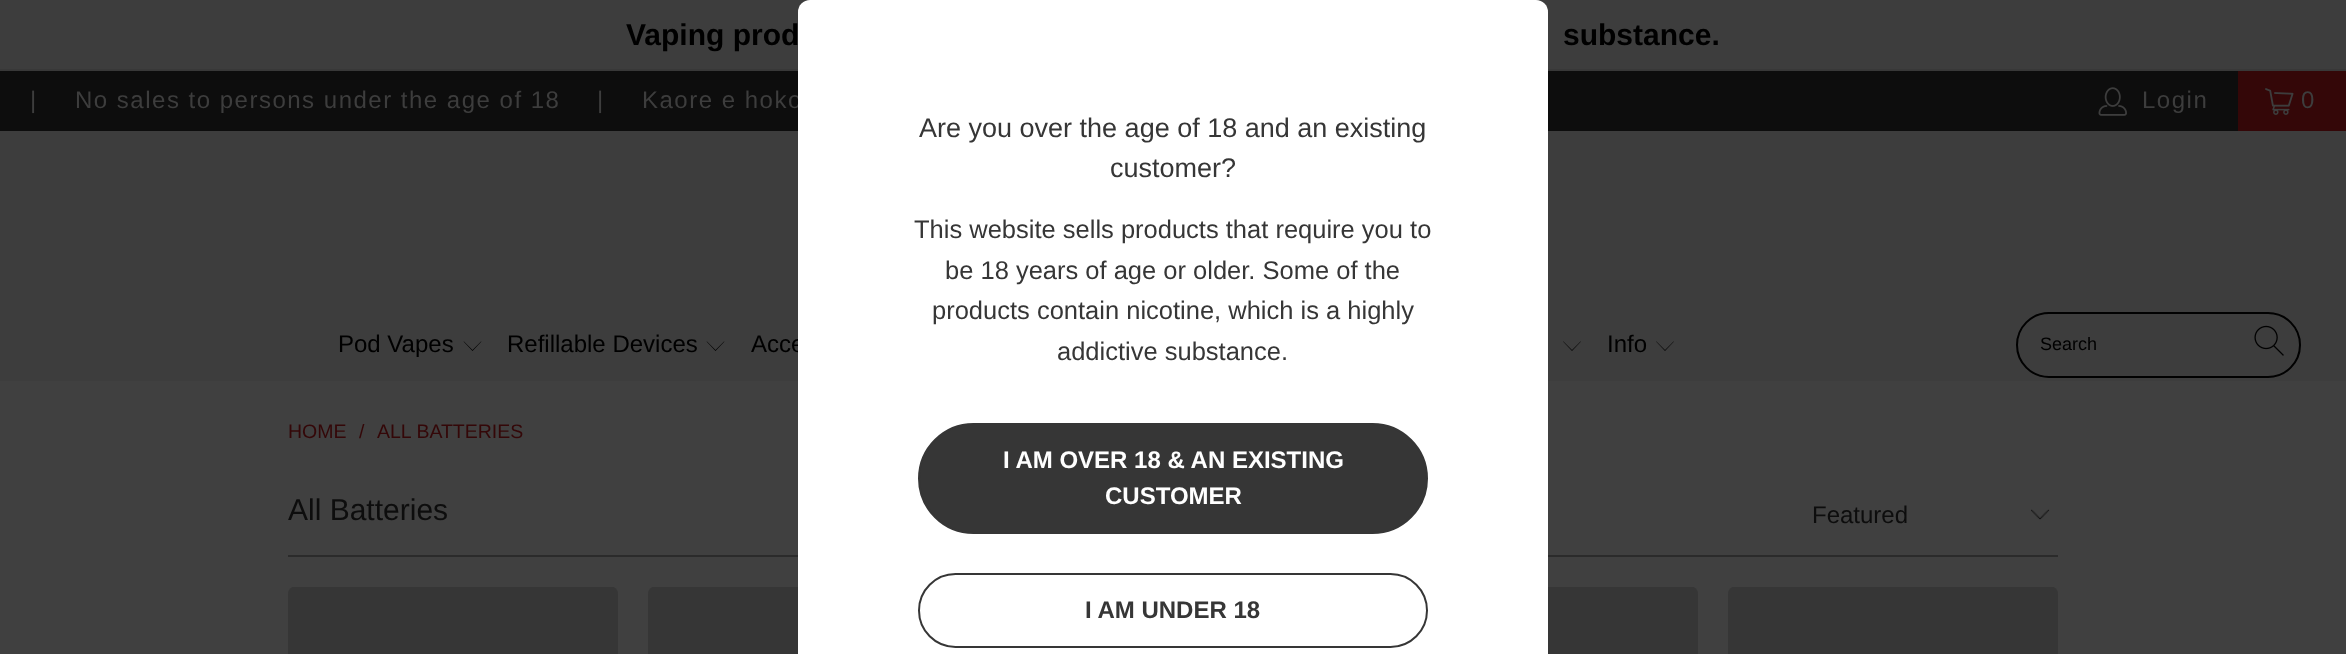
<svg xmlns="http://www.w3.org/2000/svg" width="2346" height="654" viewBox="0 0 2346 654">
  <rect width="100%" height="100%" fill="#404040"/>
  <path d="M0 0h2346v69H0z" fill="#3d3d3d"/>
  <path d="M0 69h2346v2H0z" fill="#383838"/>
  <path d="M0 71h2238v60H0z" fill="#0d0d0d"/>
  <image x="2098" y="87" width="29" height="29" href="img/1.png"/>
  <path d="M2238 71h108v60H2238z" fill="#340708"/>
  <image x="2265" y="88" width="29" height="27" href="img/2.png"/>
  <path d="M0 131h2346v250H0z" fill="#3d3d3d"/>
  <path d="M472.5 351L463.5 341.5H464L472.5 350L481 341.5H481.5Z" fill="#010101"/>
  <path d="M715.5 351L706.5 341.5H707L715.5 350L724 341.5H724.5Z" fill="#010101"/>
  <path d="M1572 351L1563 341.5H1563.5L1572 350L1580.5 341.5H1581Z" fill="#010101"/>
  <path d="M1665 351L1656 341.5H1656.5L1665 350L1673.5 341.5H1674Z" fill="#010101"/>
  <rect x="2017" y="313" width="283" height="64" rx="32" fill="none" stroke="#010101" stroke-width="2"/>
  <image x="2254" y="325" width="30" height="31" href="img/3.png"/>
  <image x="2031" y="509" width="19" height="11" href="img/4.png"/>
  <path d="M288 555h1770v2H288z" fill="#2b2b2b"/>
  <image x="288" y="587" width="330" height="67" href="img/5.png"/>
  <image x="648" y="587" width="150" height="67" href="img/6.png"/>
  <image x="1548" y="587" width="150" height="67" href="img/7.png"/>
  <image x="1728" y="587" width="330" height="67" href="img/5.png"/>
  <g font-family="Liberation Sans" font-size="30" font-weight="bold" fill="#000">
    <text x="626" y="45">Vaping prod</text>
    <text x="1563" y="45">substance.</text>
  </g>
  <g font-family="Liberation Sans" font-size="24" letter-spacing="1.5" fill="#3d3d3d">
    <text x="30" y="108">|</text>
    <text x="75" y="108">No sales to persons under the age of 18</text>
    <text x="597" y="108">|</text>
    <text x="642" y="108">Kaore e hoko</text>
    <text x="2142" y="108">Login</text>
    <text x="2301" y="108">0</text>
  </g>
  <g font-family="Liberation Sans" font-size="24" fill="#000">
    <text x="338" y="352">Pod Vapes</text>
    <text x="507" y="352">Refillable Devices</text>
    <text x="751" y="352">Acce</text>
    <text x="1607" y="352">Info</text>
  </g>
  <text x="2040" y="350" font-family="Liberation Sans" font-size="18" fill="#000">Search</text>
  <rect x="798" width="750" height="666" rx="12" fill="#fff"/>
  <g font-family="Liberation Sans" font-size="27" fill="#363636">
    <text x="919" y="137">Are you over the age of 18 and an existing</text>
    <text x="1110" y="177">customer?</text>
  </g>
  <g font-family="Liberation Sans" font-size="25.5" fill="#363636">
    <text x="914" y="238">This website sells products that require you to</text>
    <text x="945" y="279">be 18 years of age or older. Some of the</text>
    <text x="932" y="319">products contain nicotine, which is a highly</text>
    <text x="1057" y="360">addictive substance.</text>
  </g>
  <rect x="919" y="424" width="508" height="109" rx="54.5" fill="#363636" stroke="#363636" stroke-width="2"/>
  <g font-family="Liberation Sans" font-size="24" font-weight="bold" fill="#fff">
    <text x="1003" y="468">I AM OVER 18 &amp; AN EXISTING</text>
    <text x="1105" y="504">CUSTOMER</text>
  </g>
  <rect x="919" y="574" width="508" height="73" rx="36.5" fill="none" stroke="#363636" stroke-width="2"/>
  <text x="1085" y="618" font-family="Liberation Sans" font-size="24" font-weight="bold" fill="#363636">I AM UNDER 18</text>
  <g font-family="Liberation Sans" font-size="19.5" fill="#340708">
    <text x="288" y="438">HOME</text>
    <text x="359" y="438">/</text>
    <text x="377" y="438">ALL BATTERIES</text>
  </g>
  <text x="288" y="520" font-family="Liberation Sans" font-size="30" fill="#0d0d0d">All Batteries</text>
  <text x="1812" y="523" font-family="Liberation Sans" font-size="24" fill="#0d0d0d">Featured</text>
</svg>
